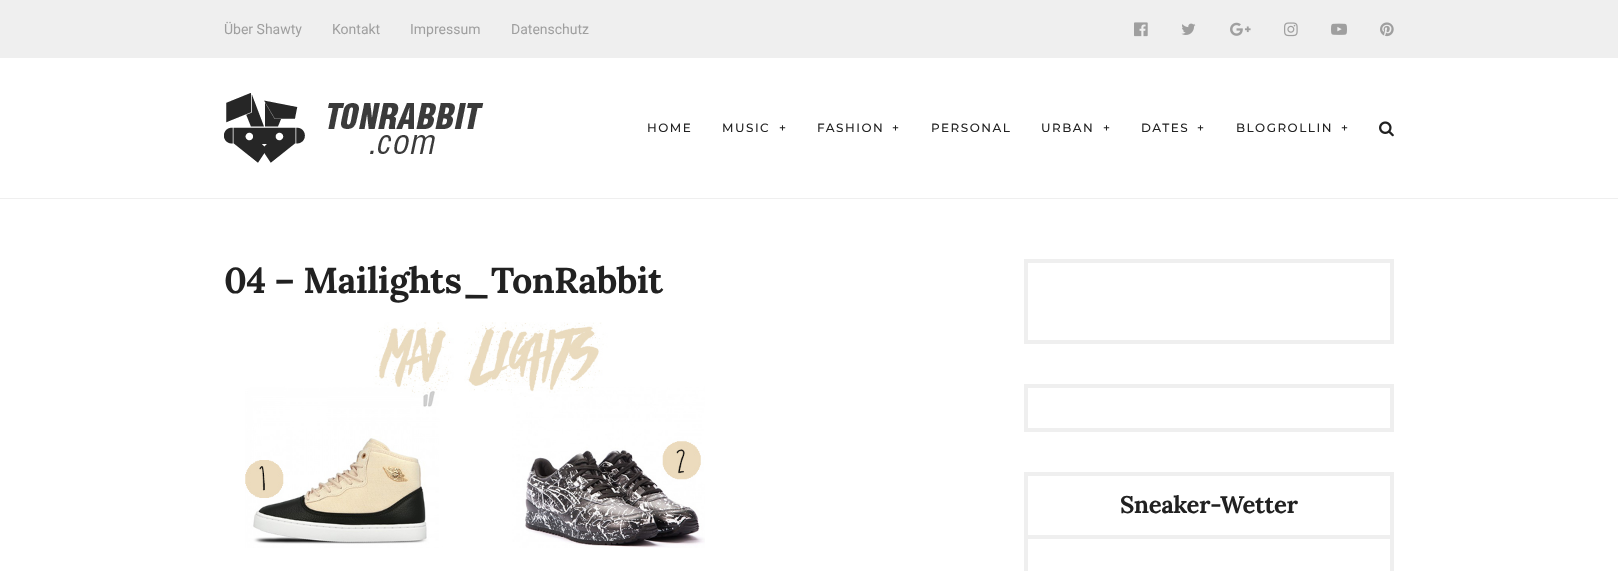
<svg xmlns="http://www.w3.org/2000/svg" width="1618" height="571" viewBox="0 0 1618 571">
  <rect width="100%" height="100%" fill="#fff"/>
  <path d="M0 0h1618v58H0z" fill="#efefef"/>
  <image x="1134" y="22" width="14" height="15" href="img/1.png"/>
  <image x="1181" y="23" width="15" height="12" href="img/2.png"/>
  <image x="1230" y="22" width="21" height="14" href="img/3.png"/>
  <image x="1284" y="22" width="14" height="15" href="img/4.png"/>
  <image x="1331" y="23" width="16" height="12" href="img/5.png"/>
  <image x="1380" y="22" width="14" height="15" href="img/6.png"/>
  <image x="224" y="93" width="260" height="70" href="img/7.png"/>
  <image x="1379" y="121" width="15" height="16" href="img/8.png"/>
  <path d="M0 198h1618v1H0z" fill="#efefef"/>
  <image x="245" y="322" width="460" height="226" href="img/9.png"/>
  <path d="M1026 261h366v81H1026z" fill="none" stroke="#efefef" stroke-width="4"/>
  <path d="M1026 386h366v44H1026z" fill="none" stroke="#efefef" stroke-width="4"/>
  <path d="M1026 474h366v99H1026z" fill="none" stroke="#efefef" stroke-width="4"/>
  <path d="M1028 535h362v4H1028z" fill="#efefef"/>
  <g font-family="Roboto" font-size="14" fill="#9f9f9f">
    <text x="224" y="34">Über Shawty</text>
    <text x="332" y="34">Kontakt</text>
    <text x="410" y="34">Impressum</text>
    <text x="511" y="34">Datenschutz</text>
  </g>
  <g font-family="Montserrat" font-size="12" font-weight="500" letter-spacing="1.5" fill="#212121">
    <text x="647" y="132">HOME</text>
    <text x="722" y="132">MUSIC</text>
    <text x="779" y="132">+</text>
    <text x="817" y="132">FASHION</text>
    <text x="892" y="132">+</text>
    <text x="931" y="132">PERSONAL</text>
    <text x="1041" y="132">URBAN</text>
    <text x="1103" y="132">+</text>
    <text x="1141" y="132">DATES</text>
    <text x="1197" y="132">+</text>
    <text x="1236" y="132">BLOGROLLIN</text>
    <text x="1341" y="132">+</text>
  </g>
  <text x="224" y="293" font-family="Lora" font-size="36" font-weight="bold" letter-spacing="-0.5" fill="#212121">04 – Mailights_TonRabbit</text>
  <text x="1120" y="513" font-family="Lora" font-size="24" font-weight="bold" letter-spacing="-0.4" fill="#212121">Sneaker-Wetter</text>
</svg>
